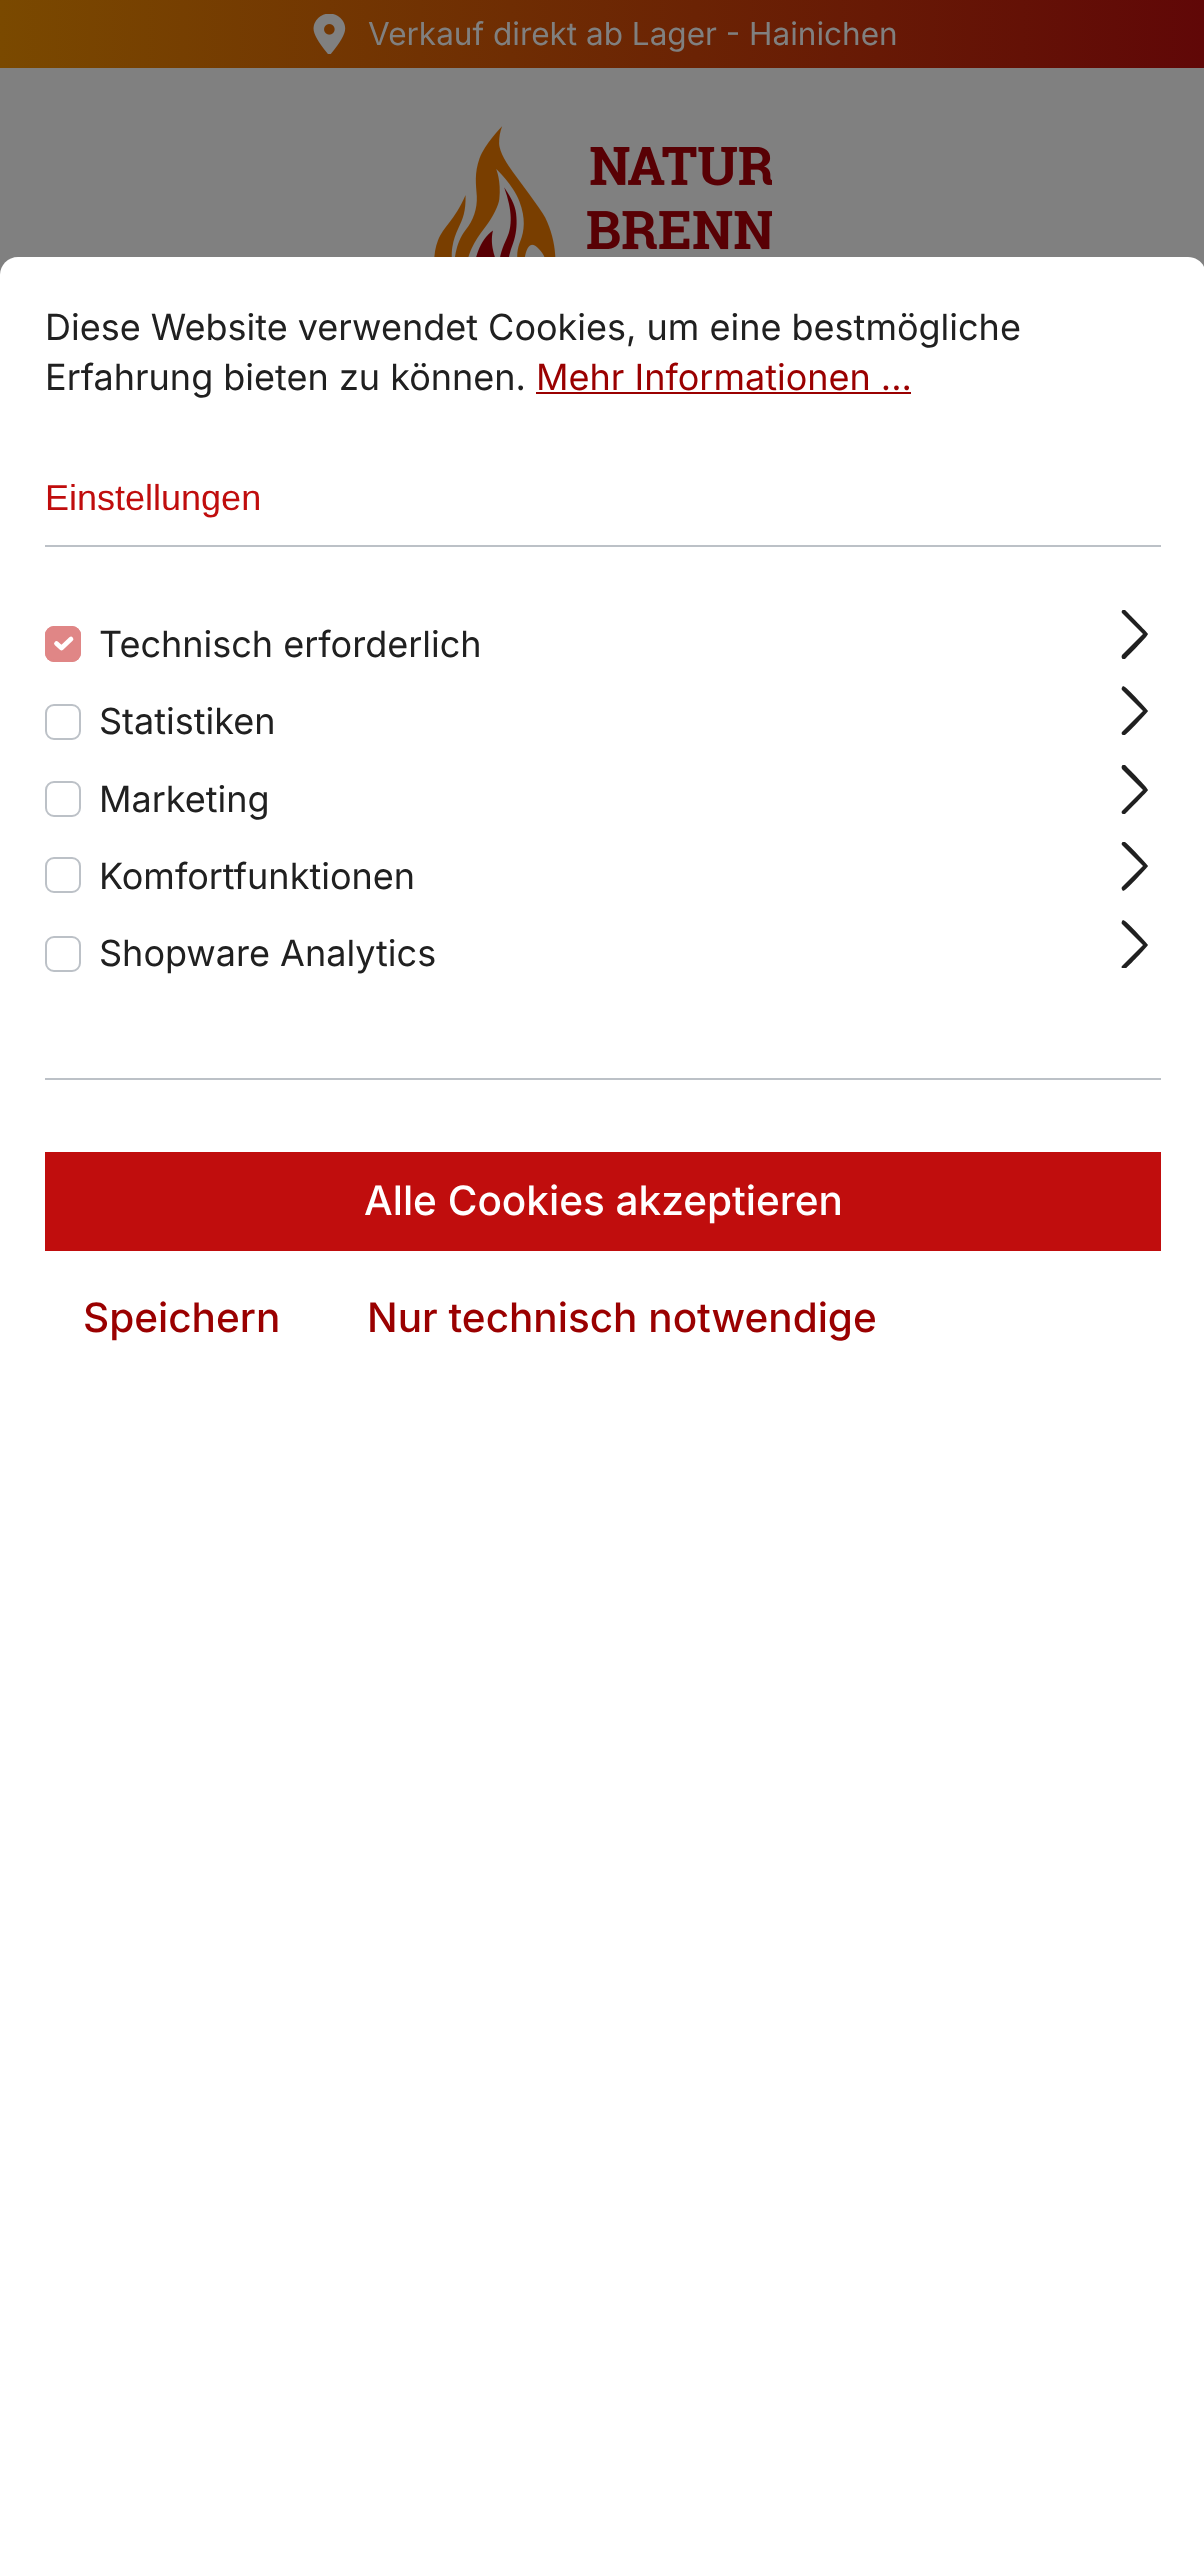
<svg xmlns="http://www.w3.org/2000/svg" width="1204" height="2562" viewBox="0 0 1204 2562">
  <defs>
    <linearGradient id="g1" gradientUnits="userSpaceOnUse" x1="0" y1="34" x2="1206" y2="34"><stop offset="0" stop-color="#7a4900"/><stop offset="1" stop-color="#600707"/></linearGradient>
    <clipPath id="clip1"><path d="M1112 920h49v48H1112z"/></clipPath>
  </defs>
  <rect width="100%" height="100%" fill="#808080"/>
  <path d="M0 0h1204v68H0z" fill="url(#g1)"/>
  <image x="313" y="14" width="33" height="40" href="img/1.png"/>
  <image x="434" y="126" width="338" height="131" href="img/2.png"/>
  <path d="M18 257H1188C1198 257 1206 265 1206 275V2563H0V275C0 265 8 257 18 257Z" fill="#fff"/>
  <path d="M45 545h1116v2H45z" fill="#bcc1c7"/>
  <path d="M536 392h375v2H536z" fill="#9a0000"/>
  <path d="M45 1078h1116v2H45z" fill="#bcc1c7"/>
  <rect x="45" y="626" width="36" height="36" rx="9" fill="#e08686"/>
  <path d="M56.5 643.5L61.5 648L71 639" fill="none" stroke="#fff" stroke-width="4.7" stroke-linecap="round" stroke-linejoin="round"/>
  <rect x="46" y="627" width="34" height="34" rx="8" fill="none" stroke="#e08686" stroke-width="2"/>
  <path d="M1143 634L1122 655C1121 657 1122 659 1123 659H1125C1127 657 1148 636 1148 634C1148 633 1127 612 1125 610H1123C1122 610 1121 612 1122 613Z" fill="#202020" fill-rule="evenodd"/>
  <rect x="46" y="705" width="34" height="34" rx="8" fill="none" stroke="#bcc1c7" stroke-width="2"/>
  <path d="M1143 711L1122 732C1121 733 1122 735 1123 735H1125C1127 734 1148 712 1148 711C1148 710 1127 688 1125 687L1123 686C1122 687 1121 689 1122 690Z" fill="#202020" fill-rule="evenodd"/>
  <rect x="46" y="782" width="34" height="34" rx="8" fill="none" stroke="#bcc1c7" stroke-width="2"/>
  <path d="M1143 790L1122 811C1121 812 1122 814 1123 814H1125C1127 812 1148 791 1148 790C1148 788 1127 767 1125 765H1123C1122 765 1121 767 1122 769Z" fill="#202020" fill-rule="evenodd"/>
  <rect x="46" y="858" width="34" height="34" rx="8" fill="none" stroke="#bcc1c7" stroke-width="2"/>
  <path d="M1143 866L1122 887C1121 888 1122 890 1123 891L1125 890C1127 889 1148 867 1148 866C1148 865 1127 843 1125 842H1123C1122 842 1121 844 1122 845Z" fill="#202020" fill-rule="evenodd"/>
  <rect x="46" y="937" width="34" height="34" rx="8" fill="none" stroke="#bcc1c7" stroke-width="2"/>
  <g clip-path="url(#clip1)">
    <path d="M1143 945L1122 966C1121 967 1122 969 1123 969H1125C1127 968 1148 946 1148 945C1148 944 1127 922 1125 921L1123 920C1122 921 1121 923 1122 924Z" fill="#202020" fill-rule="evenodd"/>
  </g>
  <path d="M45 1152h1116v99H45z" fill="#c00d0d"/>
  <text x="368" y="45" font-family="Inter" font-size="31.5" fill="#808080">Verkauf direkt ab Lager - Hainichen</text>
  <g font-family="Inter" font-size="36" fill="#202020">
    <text x="45" y="340">Diese Website verwendet Cookies, um eine bestmögliche</text>
    <text x="45" y="390">Erfahrung bieten zu können.</text>
  </g>
  <text x="536" y="390" font-family="Inter" font-size="36" fill="#9a0000">Mehr Informationen ...</text>
  <text x="45" y="510" font-family="Liberation Sans" font-size="36" fill="#c00d0d">Einstellungen</text>
  <g font-family="Inter" font-size="36" fill="#202020">
    <text x="99" y="657">Technisch erforderlich</text>
    <text x="99" y="734">Statistiken</text>
    <text x="99" y="812">Marketing</text>
    <text x="99" y="889">Komfortfunktionen</text>
    <text x="99" y="966">Shopware Analytics</text>
  </g>
  <text x="364" y="1215" font-family="Inter" font-size="40.5" font-weight="500" fill="#fff">Alle Cookies akzeptieren</text>
  <g font-family="Inter" font-size="40.5" font-weight="500" fill="#9a0000">
    <text x="83" y="1332">Speichern</text>
    <text x="367" y="1332">Nur technisch notwendige</text>
  </g>
</svg>
